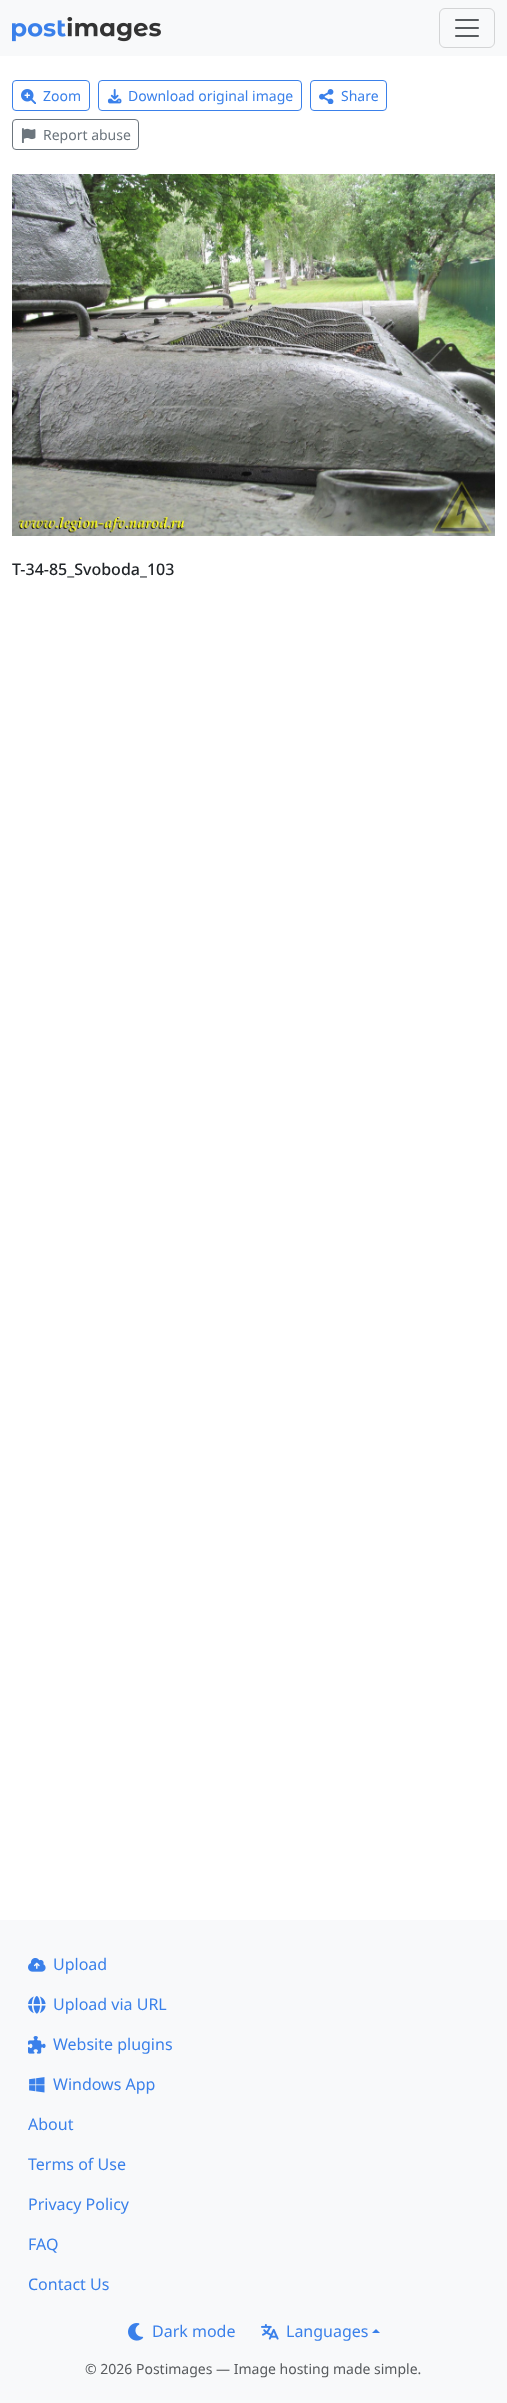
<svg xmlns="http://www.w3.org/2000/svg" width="507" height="2403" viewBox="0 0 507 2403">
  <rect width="100%" height="100%" fill="#fff"/>
  <path d="M0 0h507v56H0z" fill="#f8f9fa"/>
  <image x="12" y="17" width="149" height="25" href="img/1.png"/>
  <rect x="439.5" y="8.5" width="55" height="39" rx="5.5" fill="none" stroke="#d3d4d5"/>
  <image x="455" y="19" width="24" height="18" href="img/2.png"/>
  <rect x="12.5" y="80.5" width="77" height="30" rx="3.5" fill="none" stroke="#3a80ea"/>
  <image x="21" y="89" width="15" height="15" href="img/3.png"/>
  <rect x="98.5" y="80.5" width="203" height="30" rx="3.5" fill="none" stroke="#3a80ea"/>
  <image x="107" y="89" width="15" height="15" href="img/4.png"/>
  <rect x="310.5" y="80.5" width="76" height="30" rx="3.5" fill="none" stroke="#3a80ea"/>
  <image x="319" y="89" width="15" height="15" href="img/5.png"/>
  <rect x="12.5" y="119.5" width="126" height="30" rx="3.5" fill="none" stroke="#6c757d"/>
  <image x="21" y="128" width="15" height="15" href="img/6.png"/>
  <image x="12" y="174" width="483" height="362" href="img/7.png"/>
  <path d="M0 1920h507v483H0z" fill="#f8f9fa"/>
  <image x="28" y="1958" width="18" height="14" href="img/8.png"/>
  <image x="28" y="1996" width="18" height="18" href="img/9.png"/>
  <image x="28" y="2036" width="18" height="18" href="img/10.png"/>
  <image x="29" y="2077" width="16" height="16" href="img/11.png"/>
  <image x="128" y="2323" width="16" height="18" href="img/12.png"/>
  <image x="261" y="2324" width="18" height="16" href="img/13.png"/>
  <path d="M380 2333H372L376 2329Z" fill="#3a80ea"/>
  <g font-family="Noto Sans" font-size="14" fill="#3a80ea">
    <text x="43" y="101">Zoom</text>
    <text x="128" y="101">Download original image</text>
    <text x="341" y="101">Share</text>
  </g>
  <text x="43" y="140" font-family="Noto Sans" font-size="14" fill="#6c757d">Report abuse</text>
  <text x="12" y="575" font-family="Noto Sans" font-size="16" font-weight="500" fill="#212529">T-34-85_Svoboda_103</text>
  <g font-family="Noto Sans" font-size="16" fill="#3a80ea">
    <text x="53" y="1970">Upload</text>
    <text x="53" y="2010">Upload via URL</text>
    <text x="53" y="2050">Website plugins</text>
    <text x="53" y="2090">Windows App</text>
    <text x="28" y="2130">About</text>
    <text x="28" y="2170">Terms of Use</text>
    <text x="28" y="2210">Privacy Policy</text>
    <text x="28" y="2250">FAQ</text>
    <text x="28" y="2290">Contact Us</text>
    <text x="152" y="2337">Dark mode</text>
    <text x="286" y="2337">Languages</text>
  </g>
  <text x="85" y="2374" font-family="Noto Sans" font-size="14" fill="#575a5d">© 2026 Postimages — Image hosting made simple.</text>
</svg>
